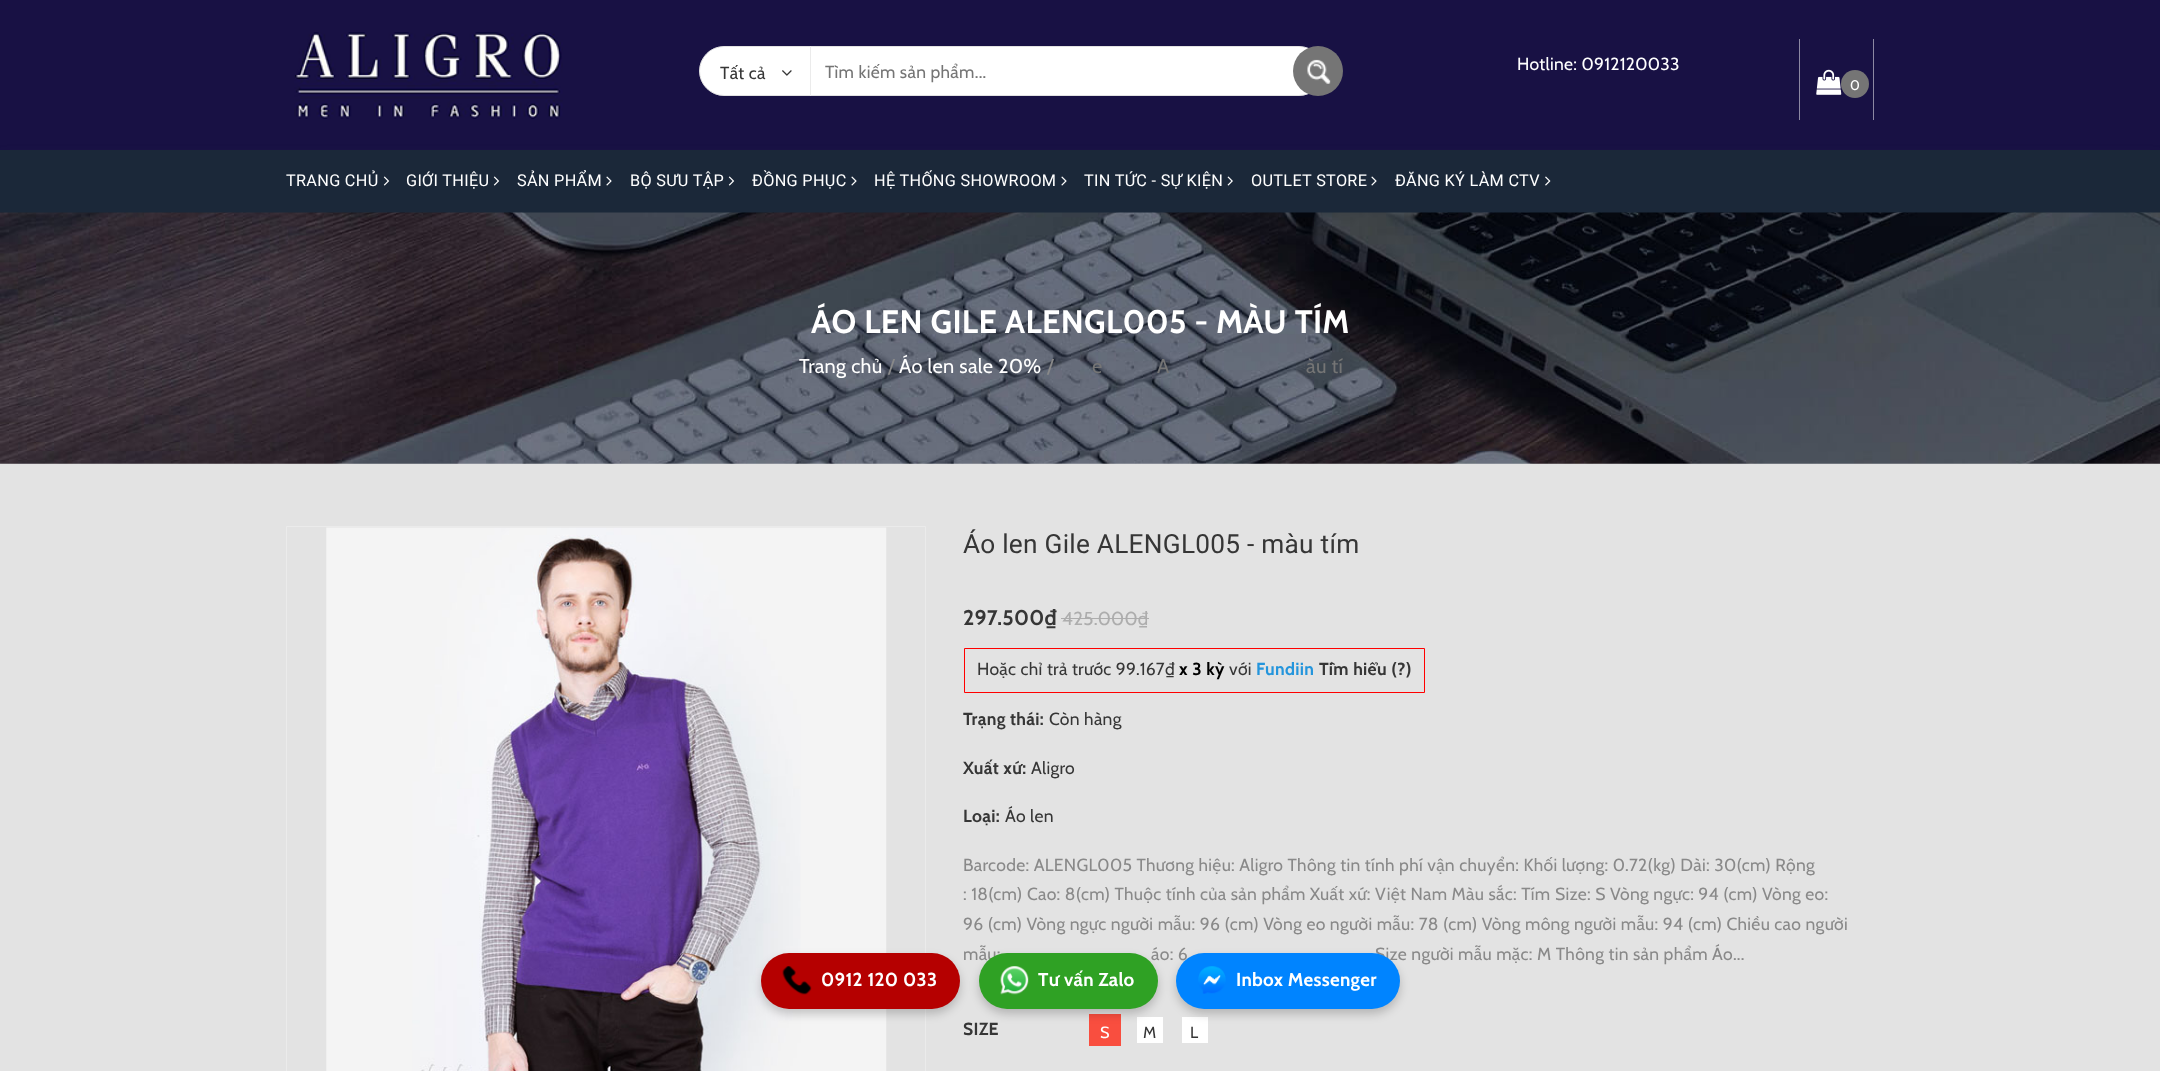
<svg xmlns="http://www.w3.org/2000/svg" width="2160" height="1071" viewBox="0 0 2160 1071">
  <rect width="100%" height="100%" fill="#e3e3e3"/>
  <path d="M0 0h2160v150H0z" fill="#181144"/>
  <image x="294" y="32" width="269" height="87" href="img/1.png"/>
  <rect x="699.5" y="46.5" width="624" height="49" rx="24.5" fill="#fff" stroke="#e2e2e2"/>
  <path d="M810 46h1v50H810z" fill="#ebebeb"/>
  <image x="782" y="70" width="10" height="6" href="img/2.png"/>
  <circle cx="1318" cy="71" r="25" fill="#757575"/>
  <image x="1307" y="59" width="24" height="25" href="img/3.png"/>
  <path d="M1873 39h1v81H1873z" fill="#8c88a2"/>
  <path d="M1799 39h1v81H1799z" fill="#8c88a2"/>
  <image x="1816" y="69" width="26" height="26" href="img/4.png"/>
  <circle cx="1855" cy="84" r="14" fill="#757575"/>
  <path d="M0 156h2160v63H0z" fill="#54545426" filter="blur(6px)"/>
  <path d="M0 150h2160v63H0z" fill="#1b2839"/>
  <image x="383" y="176" width="7" height="10" href="img/5.png"/>
  <image x="493" y="176" width="7" height="10" href="img/5.png"/>
  <image x="606" y="176" width="6" height="10" href="img/6.png"/>
  <image x="728" y="176" width="7" height="10" href="img/5.png"/>
  <image x="851" y="176" width="6" height="10" href="img/6.png"/>
  <image x="1061" y="176" width="6" height="10" href="img/6.png"/>
  <image x="1227" y="176" width="6" height="10" href="img/7.png"/>
  <image x="1371" y="176" width="6" height="10" href="img/6.png"/>
  <image x="1545" y="176" width="6" height="10" href="img/8.png"/>
  <image x="0" y="212" width="2160" height="252" href="img/9.png"/>
  <path d="M286.5 526.5h639v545H286.5z" fill="none" stroke="#ebebeb"/>
  <image x="326" y="527" width="561" height="544" href="img/10.png"/>
  <path d="M1061 618h88v1H1061z" fill="#adadad"/>
  <path d="M964.5 648.5h460v44H964.5z" fill="none" stroke="#f00"/>
  <path d="M1089 1014h32v32H1089z" fill="#f94e3f"/>
  <path d="M1137 1017h26v26H1137z" fill="#fff"/>
  <path d="M1182 1017h26v26H1182z" fill="#fff"/>
  <rect x="761" y="958" width="199" height="56" rx="28" fill="#00000033" filter="blur(5px)"/>
  <rect x="761" y="953" width="199" height="56" rx="28" fill="#b50000"/>
  <image x="782" y="966" width="30" height="29" href="img/11.png"/>
  <rect x="979" y="958" width="179" height="56" rx="28" fill="#00000033" filter="blur(5px)"/>
  <rect x="1176" y="958" width="224" height="56" rx="28" fill="#00000033" filter="blur(5px)"/>
  <text x="720" y="79" font-family="Cabin" font-size="17.5" letter-spacing="0.31" fill="#363636">Tất cả</text>
  <text x="825" y="78" font-family="Cabin" font-size="17.5" letter-spacing="0.31" fill="#757575">Tìm kiếm sản phẩm...</text>
  <text x="1517" y="70" font-family="Cabin" font-size="17.5" letter-spacing="0.31" fill="#fff">Hotline: 0912120033</text>
  <text x="1850" y="90" font-family="Cabin" font-size="14" letter-spacing="0.31" fill="#fff">0</text>
  <g font-family="Roboto" font-size="16.25" letter-spacing="0.31" fill="#fff">
    <text x="286" y="186">TRANG CHỦ</text>
    <text x="406" y="186">GIỚI THIỆU</text>
    <text x="517" y="186">SẢN PHẨM</text>
    <text x="630" y="186">BỘ SƯU TẬP</text>
    <text x="752" y="186">ĐỒNG PHỤC</text>
    <text x="874" y="186">HỆ THỐNG SHOWROOM</text>
    <text x="1084" y="186">TIN TỨC - SỰ KIỆN</text>
    <text x="1251" y="186">OUTLET STORE</text>
    <text x="1395" y="186">ĐĂNG KÝ LÀM CTV</text>
  </g>
  <text x="811" y="333" font-family="Cabin" font-size="32.5" font-weight="bold" letter-spacing="0.31" fill="#fff">ÁO LEN GILE ALENGL005 - MÀU TÍM</text>
  <text x="799" y="373" font-family="Cabin" font-size="20" letter-spacing="0.31" fill="#fff">Trang chủ</text>
  <text x="888" y="373" font-family="Cabin" font-size="20" letter-spacing="0.31" fill="#898989">/</text>
  <text x="899" y="373" font-family="Cabin" font-size="20" letter-spacing="0.31" fill="#fff">Áo len sale 20%</text>
  <text x="1047" y="373" font-family="Cabin" font-size="20" letter-spacing="0.31" fill="#898989">/</text>
  <g font-family="Cabin" font-size="20" letter-spacing="0.31" fill="#757575">
    <text x="1092" y="373">e</text>
    <text x="1157" y="373">A</text>
    <text x="1306" y="373">àu tí</text>
  </g>
  <text x="963" y="553" font-family="Roboto" font-size="26.25" letter-spacing="0.25" fill="#363636">Áo len Gile ALENGL005 - màu tím</text>
  <text x="963" y="625" font-family="Cabin" font-size="21.25" font-weight="bold" letter-spacing="0.31" fill="#363636">297.500₫</text>
  <text x="1062" y="625" font-family="Cabin" font-size="18.75" letter-spacing="0.31" fill="#adadad">425.000₫</text>
  <text x="977" y="675" font-family="Cabin" font-size="17.5" letter-spacing="0.31" fill="#363636">Hoặc chỉ trả trước 99.167₫</text>
  <text x="1179" y="675" font-family="Cabin" font-size="17.5" font-weight="bold" letter-spacing="0.31" fill="#000">x 3 kỳ</text>
  <text x="1229" y="675" font-family="Cabin" font-size="17.5" letter-spacing="0.31" fill="#363636">với</text>
  <text x="1256" y="675" font-family="Cabin" font-size="17.5" font-weight="bold" letter-spacing="0.31" fill="#2495dc">Fundiin</text>
  <g font-family="Cabin" font-size="17.5" font-weight="bold" letter-spacing="0.31" fill="#363636">
    <text x="1319" y="675">Tìm hiểu (?)</text>
    <text x="963" y="725">Trạng thái:</text>
  </g>
  <text x="1049" y="725" font-family="Cabin" font-size="17.5" letter-spacing="0.31" fill="#363636">Còn hàng</text>
  <text x="963" y="774" font-family="Cabin" font-size="17.5" font-weight="bold" letter-spacing="0.31" fill="#363636">Xuất xứ:</text>
  <text x="1031" y="774" font-family="Cabin" font-size="17.5" letter-spacing="0.31" fill="#363636">Aligro</text>
  <text x="963" y="822" font-family="Cabin" font-size="17.5" font-weight="bold" letter-spacing="0.31" fill="#363636">Loại:</text>
  <text x="1005" y="822" font-family="Cabin" font-size="17.5" letter-spacing="0.31" fill="#363636">Áo len</text>
  <g font-family="Cabin" font-size="17.5" letter-spacing="0.31" fill="#898989">
    <text x="963" y="871">Barcode: ALENGL005 Thương hiệu: Aligro Thông tin tính phí vận chuyển: Khối lượng: 0.72(kg) Dài: 30(cm) Rộng</text>
    <text x="963" y="900">: 18(cm) Cao: 8(cm) Thuộc tính của sản phẩm Xuất xứ: Việt Nam Màu sắc: Tím</text>
    <text x="1555" y="900">Size: S Vòng ngực: 94 (cm) Vòng eo:</text>
    <text x="963" y="930">96 (cm) Vòng ngực người mẫu: 96 (cm) Vòng eo người mẫu: 78 (cm) Vòng mông người mẫu: 94 (cm) Chiều cao người</text>
    <text x="963" y="960">mẫu:</text>
    <text x="1151" y="960">áo: 6</text>
    <text x="1375" y="960">Size người mẫu mặc: M Thông tin sản phẩm Áo...</text>
  </g>
  <text x="963" y="1035" font-family="Cabin" font-size="17.5" font-weight="bold" letter-spacing="0.31" fill="#363636">SIZE</text>
  <text x="1100" y="1038" font-family="Cabin" font-size="16.25" letter-spacing="0.31" fill="#fff">S</text>
  <g font-family="Cabin" font-size="16.25" letter-spacing="0.31" fill="#363636">
    <text x="1143" y="1038">M</text>
    <text x="1190" y="1038">L</text>
  </g>
  <text x="821" y="986" font-family="Cabin" font-size="18.75" font-weight="bold" letter-spacing="0.31" fill="#fff">0912 120 033</text>
  <rect x="979" y="953" width="179" height="56" rx="28" fill="#2fa124"/>
  <image x="1000" y="966" width="29" height="29" href="img/12.png"/>
  <text x="1038" y="986" font-family="Cabin" font-size="18.75" font-weight="bold" letter-spacing="0.31" fill="#fff">Tư vấn Zalo</text>
  <rect x="1176" y="953" width="224" height="56" rx="28" fill="#0084ff"/>
  <image x="1198" y="966" width="28" height="28" href="img/13.png"/>
  <text x="1236" y="986" font-family="Cabin" font-size="18.75" font-weight="bold" letter-spacing="0.31" fill="#fff">Inbox Messenger</text>
</svg>
